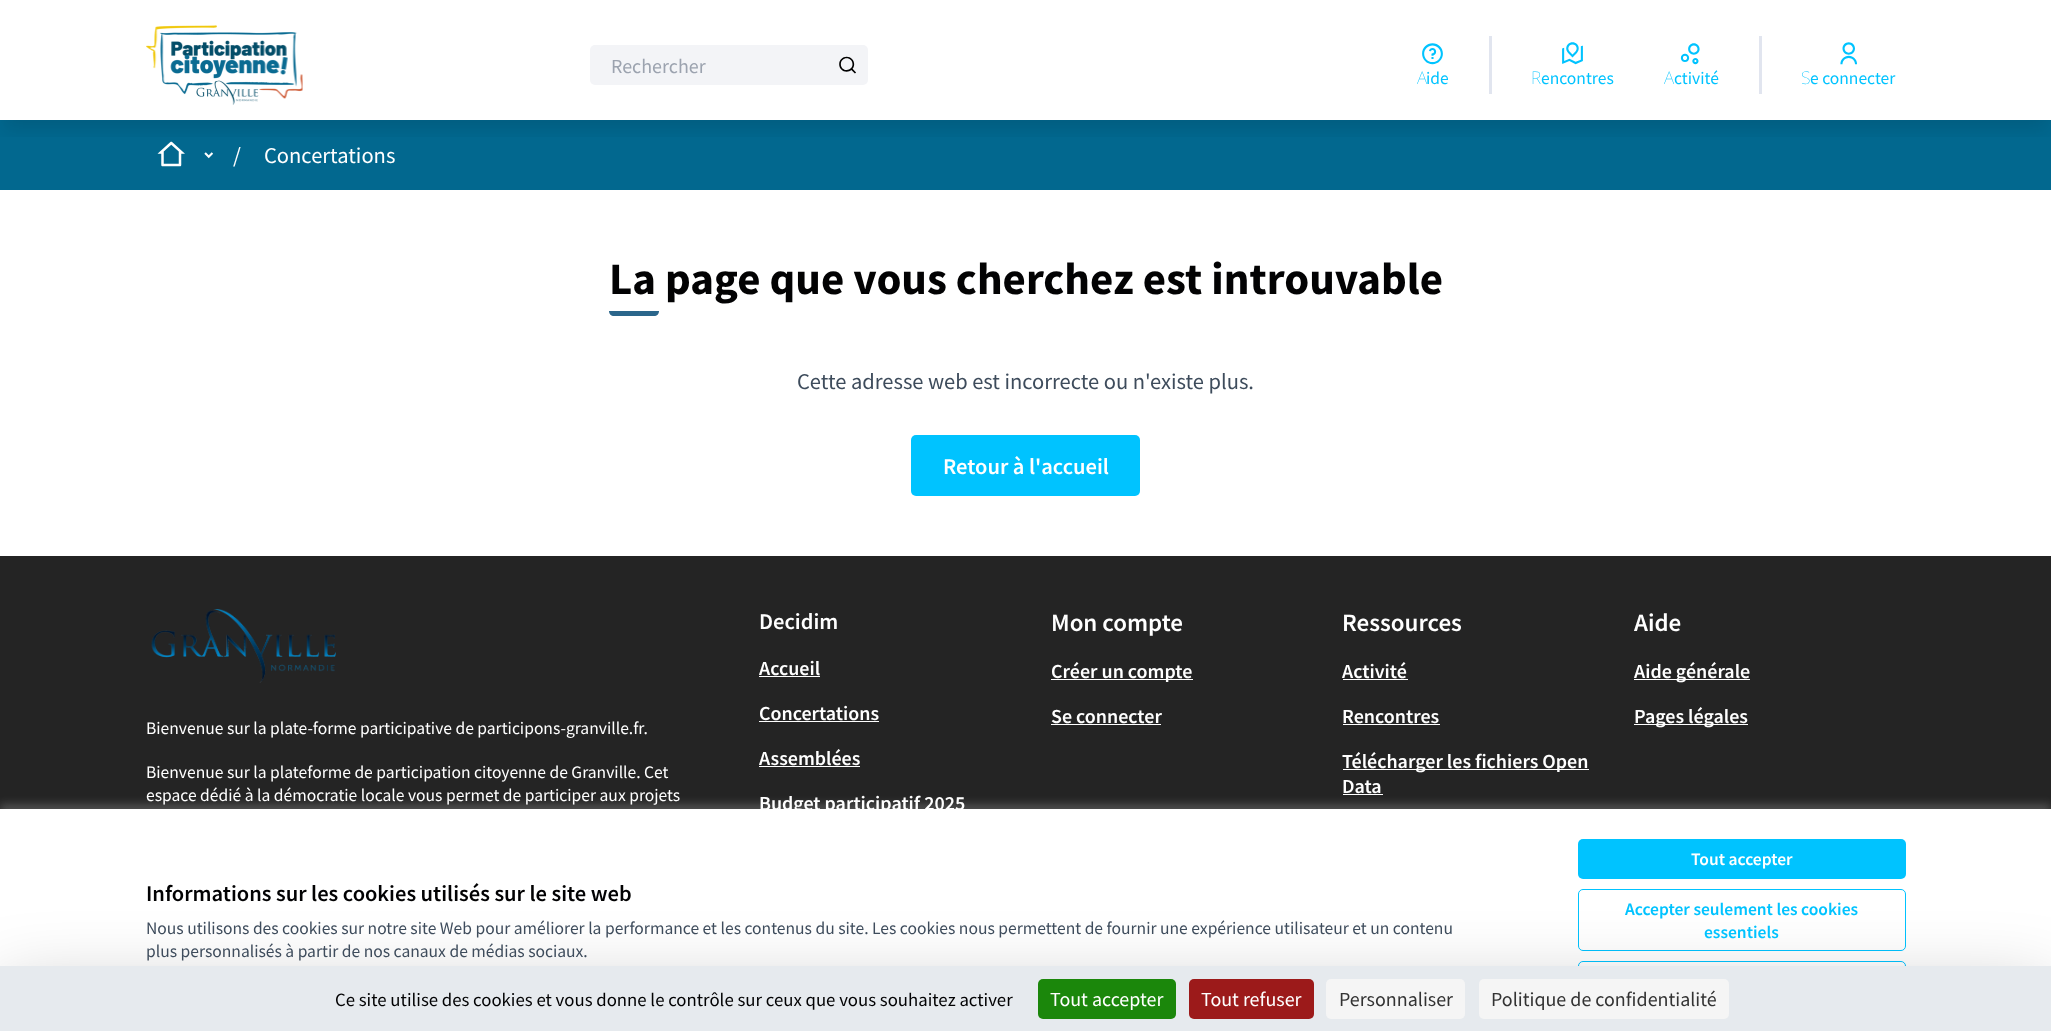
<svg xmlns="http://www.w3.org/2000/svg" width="2051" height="1031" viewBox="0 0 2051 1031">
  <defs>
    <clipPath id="clip1"><path d="M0 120h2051v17H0z"/></clipPath>
  </defs>
  <rect width="100%" height="100%" fill="#fff"/>
  <path d="M0 120h2051v70H0z" fill="#02688f"/>
  <image x="157" y="141" width="28" height="26" href="img/7.png"/>
  <image x="204" y="152" width="9" height="7" href="img/8.png"/>
  <g clip-path="url(#clip1)">
    <path d="M4 16h2044v113H4z" fill="#0000001a" filter="blur(9.5px)"/>
  </g>
  <image x="146" y="25" width="157" height="80" href="img/1.png"/>
  <rect x="590" y="45" width="278" height="40" rx="5" fill="#f3f4f7"/>
  <image x="839" y="56" width="17" height="18" href="img/2.png"/>
  <image x="1422" y="43" width="21" height="22" href="img/3.png"/>
  <path d="M1489 36h3v58H1489z" fill="#e1e5ef"/>
  <image x="1562" y="42" width="21" height="23" href="img/4.png"/>
  <image x="1680" y="43" width="20" height="22" href="img/5.png"/>
  <path d="M1759 36h3v58H1759z" fill="#e1e5ef"/>
  <image x="1840" y="42" width="17" height="23" href="img/6.png"/>
  <path d="M609 311H659C659 314 657 316 654 316H614C611 316 609 314 609 311Z" fill="#2b668b"/>
  <rect x="911" y="435" width="229" height="61" rx="5" fill="#00c3ff"/>
  <path d="M0 556h2051v253H0z" fill="#242424"/>
  <image x="151" y="609" width="185" height="74" href="img/9.png"/>
  <path d="M759 676h61v1H759z" fill="#fff"/>
  <path d="M759 721h120v1H759z" fill="#fff"/>
  <path d="M759 766h101v1H759z" fill="#fff"/>
  <path d="M1051 679h142v1H1051z" fill="#fff"/>
  <path d="M1051 724h110v1H1051z" fill="#fff"/>
  <path d="M1343 679h65v1H1343z" fill="#fff"/>
  <path d="M1343 724h97v1H1343z" fill="#fff"/>
  <path d="M1343 769h246v1H1343z" fill="#fff"/>
  <path d="M1343 794h40v1H1343z" fill="#fff"/>
  <path d="M1634 679h116v1H1634z" fill="#fff"/>
  <path d="M1634 724h114v1H1634z" fill="#fff"/>
  <path d="M0 804h2051v222H0z" fill="#d3d3d340" filter="blur(4px)"/>
  <path d="M0 809h2051v157H0z" fill="#fff"/>
  <rect x="1578" y="839" width="328" height="40" rx="5" fill="#00c3ff"/>
  <rect x="1578.5" y="889.5" width="327" height="61" rx="4.5" fill="none" stroke="#00c3ff"/>
  <rect x="1578.5" y="961.5" width="327" height="39" rx="4.5" fill="none" stroke="#00c3ff"/>
  <path d="M0 991h2051v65H0z" fill="#00000040" filter="blur(37.5px)"/>
  <path d="M0 966h2051v65H0z" fill="#e6eaee"/>
  <rect x="1038" y="979" width="138" height="40" rx="5" fill="#1b870b"/>
  <rect x="1189" y="979" width="125" height="40" rx="5" fill="#9c1a1a"/>
  <rect x="1326" y="979" width="139" height="40" rx="5" fill="#f5f5f5"/>
  <rect x="1479" y="979" width="250" height="40" rx="5" fill="#f5f5f5"/>
  <text x="611" y="73" font-family="Source Sans Pro" font-size="20" fill="#9ca3af">Rechercher</text>
  <text x="1417" y="84" font-family="Noto Sans" font-size="17.5" font-weight="100" fill="#00c3ff">A</text>
  <text x="1426" y="84" font-family="Source Sans Pro" font-size="17.5" fill="#00c3ff">ide</text>
  <text x="1531" y="84" font-family="Noto Sans" font-size="17.5" font-weight="100" fill="#00c3ff">R</text>
  <text x="1541" y="84" font-family="Source Sans Pro" font-size="17.5" fill="#00c3ff">encontres</text>
  <text x="1664" y="84" font-family="Noto Sans" font-size="17.5" font-weight="100" fill="#00c3ff">A</text>
  <text x="1674" y="84" font-family="Source Sans Pro" font-size="17.5" fill="#00c3ff">ctivité</text>
  <text x="1801" y="84" font-family="Noto Sans" font-size="17.5" font-weight="100" fill="#00c3ff">S</text>
  <text x="1810" y="84" font-family="Source Sans Pro" font-size="17.5" fill="#00c3ff">e connecter</text>
  <g font-family="Source Sans Pro" font-size="22.5" fill="#fff">
    <text x="233" y="163">/</text>
    <text x="264" y="163">Concertations</text>
  </g>
  <text x="609" y="294" font-family="Source Sans Pro" font-size="45" font-weight="bold" fill="#020203">La page que vous cherchez est introuvable</text>
  <text x="797" y="389" font-family="Source Sans Pro" font-size="22.5" fill="#3e4c5c">Cette adresse web est incorrecte ou n'existe plus.</text>
  <text x="943" y="474" font-family="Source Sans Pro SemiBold" font-size="22.5" font-weight="600" fill="#fff">Retour à l'accueil</text>
  <g font-family="Source Sans Pro" font-size="17.5" fill="#fff">
    <text x="146" y="734">Bienvenue sur la plate-forme participative de participons-granville.fr.</text>
    <text x="146" y="778">Bienvenue sur la plateforme de participation citoyenne de Granville. Cet</text>
    <text x="146" y="801">espace dédié à la démocratie locale vous permet de participer aux projets</text>
  </g>
  <text x="759" y="629" font-family="Source Sans Pro SemiBold" font-size="22.5" font-weight="600" fill="#fff">Decidim</text>
  <g font-family="Source Sans Pro SemiBold" font-size="20" font-weight="600" fill="#fff">
    <text x="759" y="675">Accueil</text>
    <text x="759" y="720">Concertations</text>
    <text x="759" y="765">Assemblées</text>
    <text x="759" y="810">Budget participatif 2025</text>
  </g>
  <text x="1051" y="631" font-family="Source Sans Pro SemiBold" font-size="25" font-weight="600" fill="#fff">Mon compte</text>
  <g font-family="Source Sans Pro SemiBold" font-size="20" font-weight="600" fill="#fff">
    <text x="1051" y="678">Créer un compte</text>
    <text x="1051" y="723">Se connecter</text>
  </g>
  <text x="1342" y="631" font-family="Source Sans Pro SemiBold" font-size="25" font-weight="600" fill="#fff">Ressources</text>
  <g font-family="Source Sans Pro SemiBold" font-size="20" font-weight="600" fill="#fff">
    <text x="1342" y="678">Activité</text>
    <text x="1342" y="723">Rencontres</text>
    <text x="1342" y="768">Télécharger les fichiers Open</text>
    <text x="1342" y="793">Data</text>
  </g>
  <text x="1634" y="631" font-family="Source Sans Pro SemiBold" font-size="25" font-weight="600" fill="#fff">Aide</text>
  <g font-family="Source Sans Pro SemiBold" font-size="20" font-weight="600" fill="#fff">
    <text x="1634" y="678">Aide générale</text>
    <text x="1634" y="723">Pages légales</text>
  </g>
  <text x="146" y="901" font-family="Source Sans Pro SemiBold" font-size="22.5" font-weight="600" fill="#020203">Informations sur les cookies utilisés sur le site web</text>
  <g font-family="Source Sans Pro" font-size="17.5" fill="#3e4c5c">
    <text x="146" y="934">Nous utilisons des cookies sur notre site Web pour améliorer la performance et les contenus du site. Les cookies nous permettent de fournir une expérience utilisateur et un contenu</text>
    <text x="146" y="957">plus personnalisés à partir de nos canaux de médias sociaux.</text>
  </g>
  <text x="1691" y="865" font-family="Source Sans Pro SemiBold" font-size="17.5" font-weight="600" fill="#fff">Tout accepter</text>
  <g font-family="Source Sans Pro SemiBold" font-size="17.5" font-weight="600" fill="#00c3ff">
    <text x="1625" y="915">Accepter seulement les cookies</text>
    <text x="1704" y="938">essentiels</text>
  </g>
  <text x="335" y="1006" font-family="Source Sans Pro" font-size="18.75" fill="#020203">Ce site utilise des cookies et vous donne le contrôle sur ceux que vous souhaitez activer</text>
  <g font-family="Source Sans Pro" font-size="20" fill="#fff">
    <text x="1050" y="1006">Tout accepter</text>
    <text x="1201" y="1006">Tout refuser</text>
  </g>
  <g font-family="Source Sans Pro" font-size="20" fill="#333">
    <text x="1339" y="1006">Personnaliser</text>
    <text x="1491" y="1006">Politique de confidentialité</text>
  </g>
</svg>
